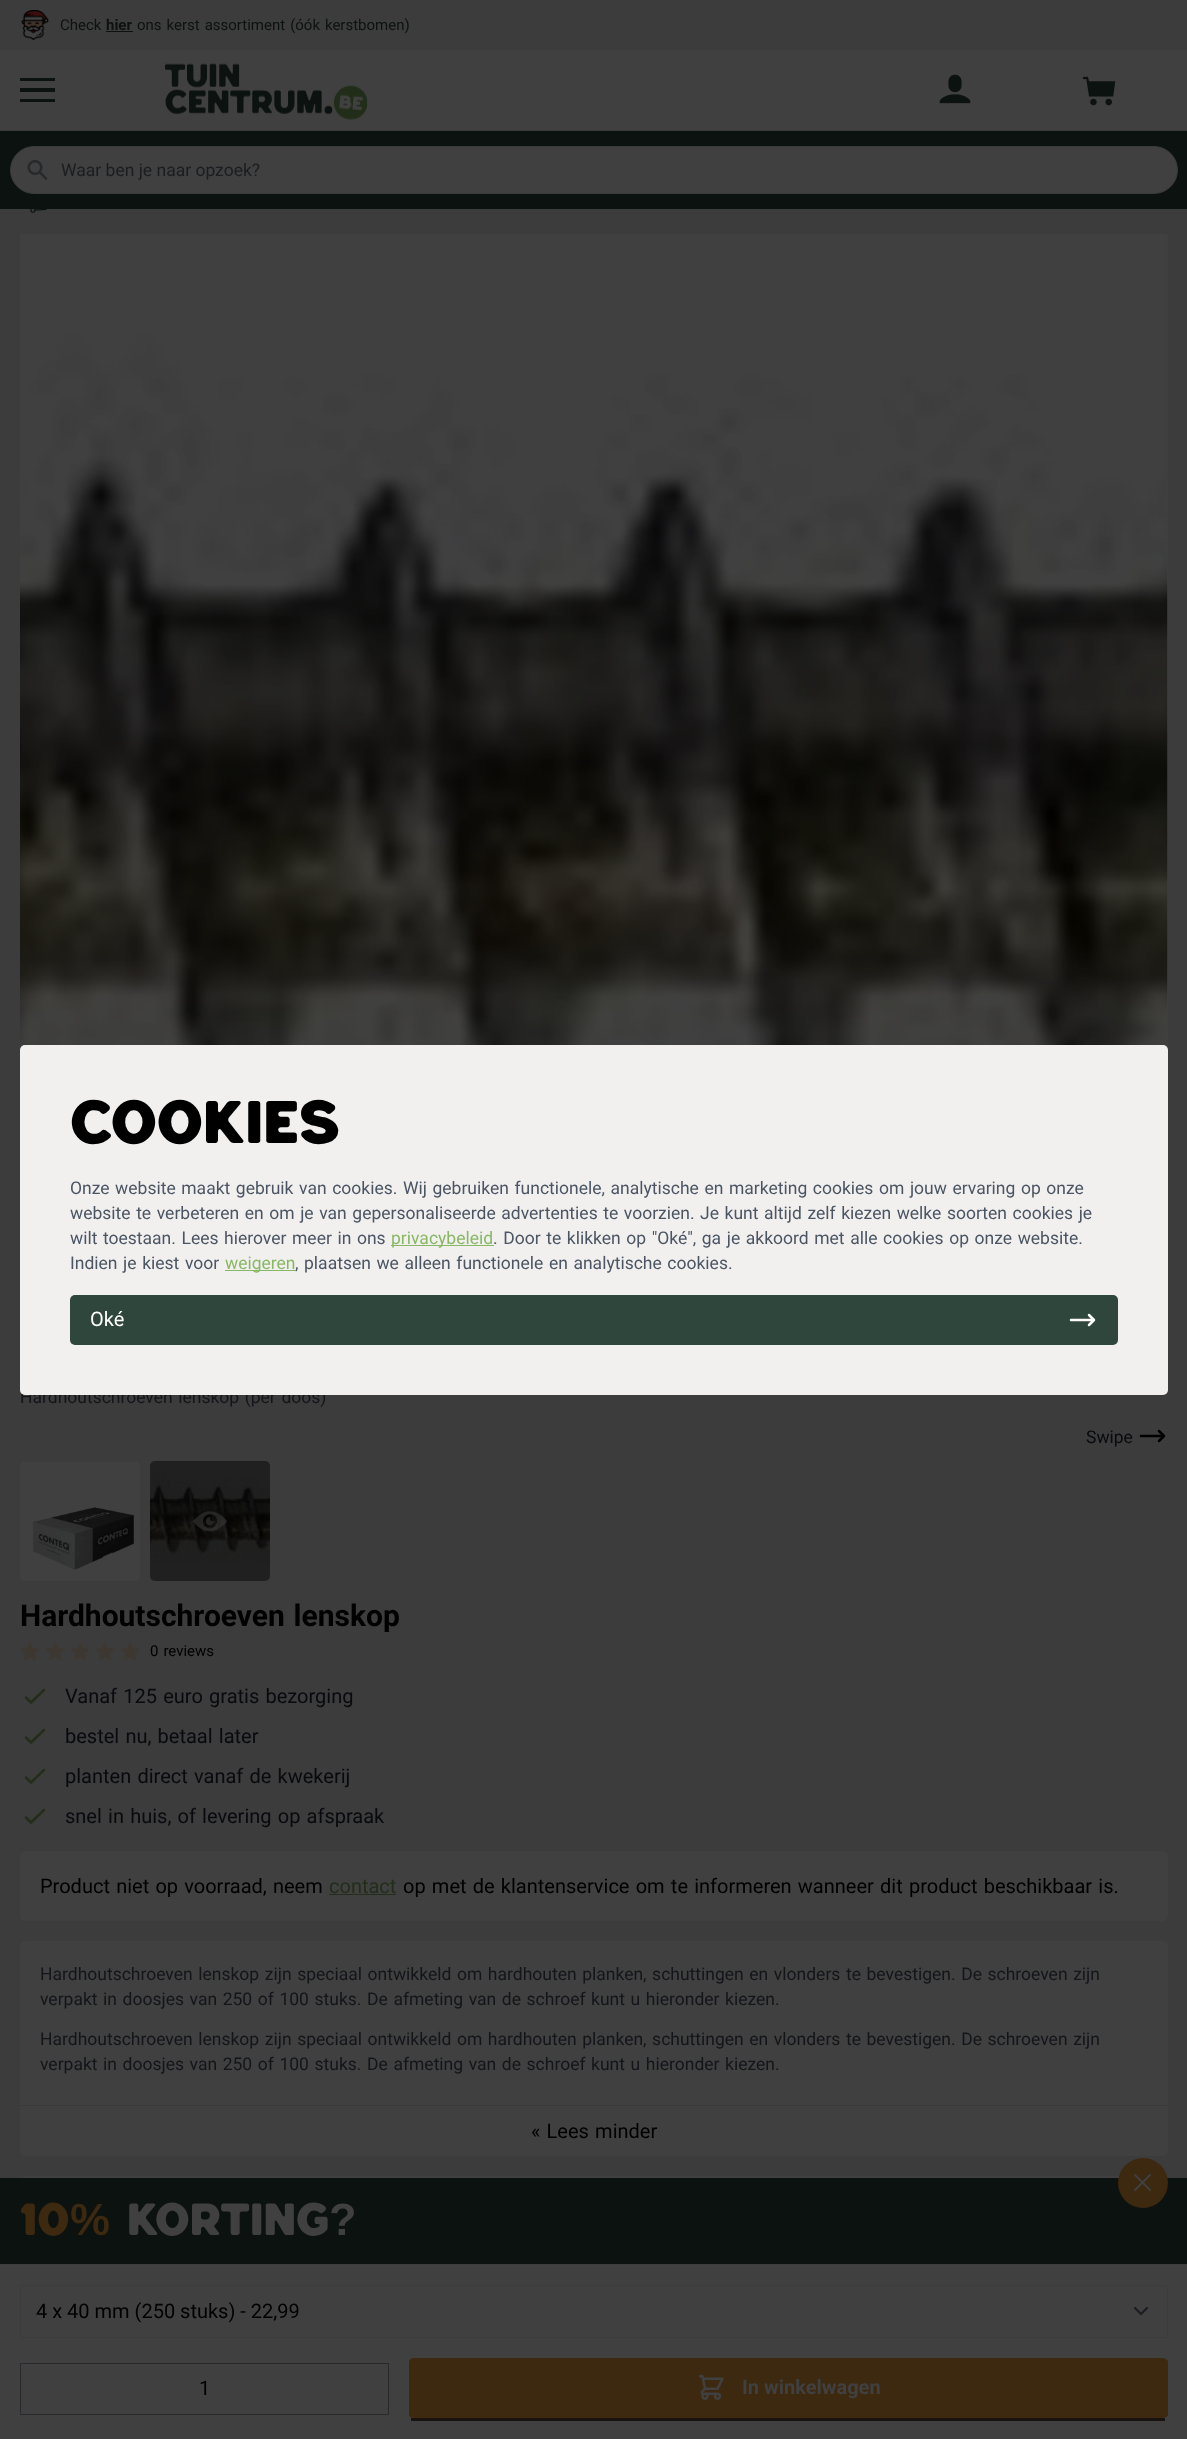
<svg xmlns="http://www.w3.org/2000/svg" width="1187" height="2439" viewBox="0 0 1187 2439">
  <rect width="100%" height="100%" fill="#404040"/>
  <path d="M0 0h1187v50H0z" fill="#3d3c3c"/>
  <image x="21" y="10" width="28" height="30" href="img/1.png"/>
  <path d="M106 31h27v1H106z" fill="#0c120f"/>
  <path d="M0 130h1187v1H0z" fill="#393a3b"/>
  <path d="M20 78H55V81H20ZM20 88H55V92H20ZM20 99H55V102H20Z" fill="#0c120f"/>
  <image x="165" y="63" width="203" height="57" href="img/2.png"/>
  <image x="939" y="74" width="32" height="30" href="img/3.png"/>
  <image x="1083" y="76" width="33" height="30" href="img/4.png"/>
  <path d="M0 131h1187v78H0z" fill="#0c120f"/>
  <rect x="10.5" y="146.5" width="1167" height="47" rx="23.5" fill="#404040" stroke="#393a3b"/>
  <image x="27" y="160" width="21" height="20" href="img/5.png"/>
  <path d="M0 209h1187v1969H0z" fill="#3d3c3c"/>
  <image x="30" y="209" width="17" height="4" href="img/6.png"/>
  <path d="M20 234h1148v816H20z" fill="#3e3f3f"/>
  <image x="20" y="234" width="1148" height="816" href="img/7.png"/>
  <path d="M1159 1431L1164 1436M1164 1436L1159 1441M1164 1436H1141" fill="none" stroke="#000" stroke-width="2.5" stroke-linecap="round" stroke-linejoin="round"/>
  <image x="20" y="1461" width="120" height="120" href="img/8.png"/>
  <image x="150" y="1461" width="120" height="120" href="img/9.png"/>
  <rect x="150" y="1461" width="120" height="120" rx="5" fill="#00000080"/>
  <image x="192" y="1511" width="36" height="21" href="img/10.png"/>
  <image x="20" y="1642" width="20" height="19" href="img/11.png"/>
  <image x="45" y="1642" width="20" height="19" href="img/11.png"/>
  <image x="70" y="1642" width="20" height="19" href="img/11.png"/>
  <image x="95" y="1642" width="20" height="19" href="img/11.png"/>
  <image x="120" y="1642" width="20" height="19" href="img/11.png"/>
  <path d="M26 1697.5L31 1702.5L44 1690M26 1737.5L31 1742.5L44 1730" fill="none" stroke="#222e19" stroke-width="2.5" stroke-linecap="round" stroke-linejoin="round"/>
  <path d="M26 1777.5L31 1782.5L44 1770M26 1817.5L31 1822.5L44 1810" fill="none" stroke="#222e19" stroke-width="2.5" stroke-linecap="round" stroke-linejoin="round"/>
  <rect x="20" y="1851" width="1148" height="70" rx="5" fill="#404040"/>
  <path d="M329 1894h67v1H329z" fill="#222e19"/>
  <rect x="20" y="1941" width="1148" height="215" rx="5" fill="#404040"/>
  <path d="M20 2105h1148v1H20z" fill="#393a3b"/>
  <rect x="20" y="2176" width="1148" height="140" rx="5" fill="#404040"/>
  <path d="M0 2264h1187v1H0z" fill="#3d3c3c"/>
  <path d="M1135 2308L1141 2314L1147 2308" fill="none" stroke="#1b1d20" stroke-width="2.2" stroke-linecap="round" stroke-linejoin="round"/>
  <path d="M20.5 2285.5h1147v52H20.5z" fill="none" stroke="#3d3c3c"/>
  <path d="M20.5 2363.5h368v51H20.5z" fill="none" stroke="#27292c"/>
  <path d="M414 2358H1162C1165 2358 1168 2360 1168 2362V2415C1168 2416 1165 2418 1162 2418H414C411 2418 409 2416 409 2415V2362C409 2360 411 2358 414 2358Z" fill="#3d2810"/>
  <path d="M411 2418h754v3H411z" fill="#18130e"/>
  <image x="698" y="2375" width="26" height="25" href="img/12.png"/>
  <path d="M0 2178h1187v86H0z" fill="#0c120f"/>
  <circle cx="1143" cy="2183" r="25" fill="#3d2810"/>
  <path d="M1135 2190L1150 2175M1135 2175L1150 2190" fill="none" stroke="#404040" stroke-width="1.9" stroke-linecap="round" stroke-linejoin="round"/>
  <text x="60" y="30" font-family="Roboto" font-size="15" fill="#0c120f">Check</text>
  <text x="106" y="30" font-family="Roboto" font-size="15" font-weight="bold" fill="#0c120f">hier</text>
  <text x="137" y="30" word-spacing="1.25" font-family="Roboto" font-size="15" fill="#0c120f">ons kerst assortiment (óók kerstbomen)</text>
  <text x="61" y="176" font-family="Roboto" font-size="17.5" fill="#1b1d20">Waar ben je naar opzoek?</text>
  <text x="20" y="1403" word-spacing="1.25" font-family="Roboto" font-size="17.5" fill="#131519">Hardhoutschroeven lenskop (per doos)</text>
  <rect x="20" y="1045" width="1148" height="350" rx="5" fill="#f2f0ef"/>
  <rect x="70" y="1295" width="1048" height="50" rx="5" fill="#2e463b"/>
  <path d="M1089 1315L1094 1320M1094 1320L1089 1325M1094 1320H1071" fill="none" stroke="#fff" stroke-width="2.5" stroke-linecap="round" stroke-linejoin="round"/>
  <text x="90" y="1326" font-family="Roboto" font-size="20" fill="#fff">Oké</text>
  <text x="295" y="1269" word-spacing="1.25" font-family="Roboto" font-size="17.5" fill="#4b5563">, plaatsen we alleen functionele en analytische cookies.</text>
  <path d="M225 1270h70v1H225z" fill="#89b865"/>
  <text x="225" y="1269" font-family="Roboto" font-size="17.5" fill="#89b865">weigeren</text>
  <g font-family="Roboto" font-size="17.5" fill="#4b5563">
    <text x="70" y="1269" word-spacing="1.25">Indien je kiest voor</text>
    <text x="493" y="1244" word-spacing="1.25">. Door te klikken op "Oké", ga je akkoord met alle cookies op onze website.</text>
  </g>
  <path d="M391 1245h103v1H391z" fill="#89b865"/>
  <text x="391" y="1244" font-family="Roboto" font-size="17.5" fill="#89b865">privacybeleid</text>
  <g font-family="Roboto" font-size="17.5" fill="#4b5563">
    <text x="70" y="1244" word-spacing="1.25">wilt toestaan. Lees hierover meer in ons</text>
    <text x="700" y="1219" word-spacing="1.25">Je kunt altijd zelf kiezen welke soorten cookies je</text>
    <text x="70" y="1219" word-spacing="1.25">website te verbeteren en om je van gepersonaliseerde advertenties te voorzien.</text>
    <text x="70" y="1194" word-spacing="1.25">Onze website maakt gebruik van cookies. Wij gebruiken functionele, analytische en marketing cookies om jouw ervaring op onze</text>
  </g>
  <text x="70" y="1143" font-family="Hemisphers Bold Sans" font-size="60" font-weight="bold" fill="#000">Cookies</text>
  <text x="1086" y="1443" font-family="Roboto" font-size="17.5" fill="#080a0e">Swipe</text>
  <text x="20" y="1626" word-spacing="1.25" font-family="Roboto" font-size="30" font-weight="bold" fill="#000">Hardhoutschroeven lenskop</text>
  <text x="150" y="1656" word-spacing="1.25" font-family="Roboto" font-size="15" fill="#000">0 reviews</text>
  <g font-family="Roboto" font-size="20" fill="#080a0e">
    <text x="65" y="1703" word-spacing="1.25">Vanaf 125 euro gratis bezorging</text>
    <text x="65" y="1743" word-spacing="1.25">bestel nu, betaal later</text>
    <text x="65" y="1783" word-spacing="1.25">planten direct vanaf de kwekerij</text>
    <text x="65" y="1823" word-spacing="1.25">snel in huis, of levering op afspraak</text>
  </g>
  <text x="40" y="1893" word-spacing="1.25" font-family="Roboto" font-size="20" fill="#000">Product niet op voorraad, neem</text>
  <text x="329" y="1893" font-family="Roboto" font-size="20" fill="#222e19">contact</text>
  <text x="403" y="1893" word-spacing="1.25" font-family="Roboto" font-size="20" fill="#000">op met de klantenservice om te informeren wanneer dit product beschikbaar is.</text>
  <g font-family="Roboto" font-size="17.5" fill="#131519">
    <text x="40" y="1980" word-spacing="1.25">Hardhoutschroeven lenskop zijn speciaal ontwikkeld om hardhouten planken, schuttingen en vlonders te bevestigen. De schroeven zijn</text>
    <text x="40" y="2005" word-spacing="1.25">verpakt in doosjes van 250 of 100 stuks. De afmeting van de schroef kunt u hieronder kiezen.</text>
    <text x="40" y="2045" word-spacing="1.25">Hardhoutschroeven lenskop zijn speciaal ontwikkeld om hardhouten planken, schuttingen en vlonders te bevestigen. De schroeven zijn</text>
    <text x="40" y="2070" word-spacing="1.25">verpakt in doosjes van 250 of 100 stuks. De afmeting van de schroef kunt u hieronder kiezen.</text>
  </g>
  <g font-family="Roboto" font-size="20" fill="#000">
    <text x="531" y="2138" word-spacing="1.25">« Lees minder</text>
    <text x="36" y="2318">4 x 40 mm (250 stuks) - 22,99</text>
    <text x="199" y="2395">1</text>
  </g>
  <text x="742" y="2394" font-family="Roboto" font-size="20" font-weight="bold" fill="#404040">In winkelwagen</text>
  <text x="20" y="2235" font-family="Hemisphers Bold Sans" font-size="45" font-weight="bold" fill="#3d2810">10</text>
  <text x="70" y="2235" font-family="Liberation Sans" font-size="45" font-weight="bold" fill="#3d2810">%</text>
  <text x="127" y="2235" font-family="Hemisphers Bold Sans" font-size="45" font-weight="bold" fill="#404040">Korting</text>
  <text x="329" y="2235" font-family="Liberation Sans" font-size="45" font-weight="bold" fill="#404040">?</text>
</svg>
